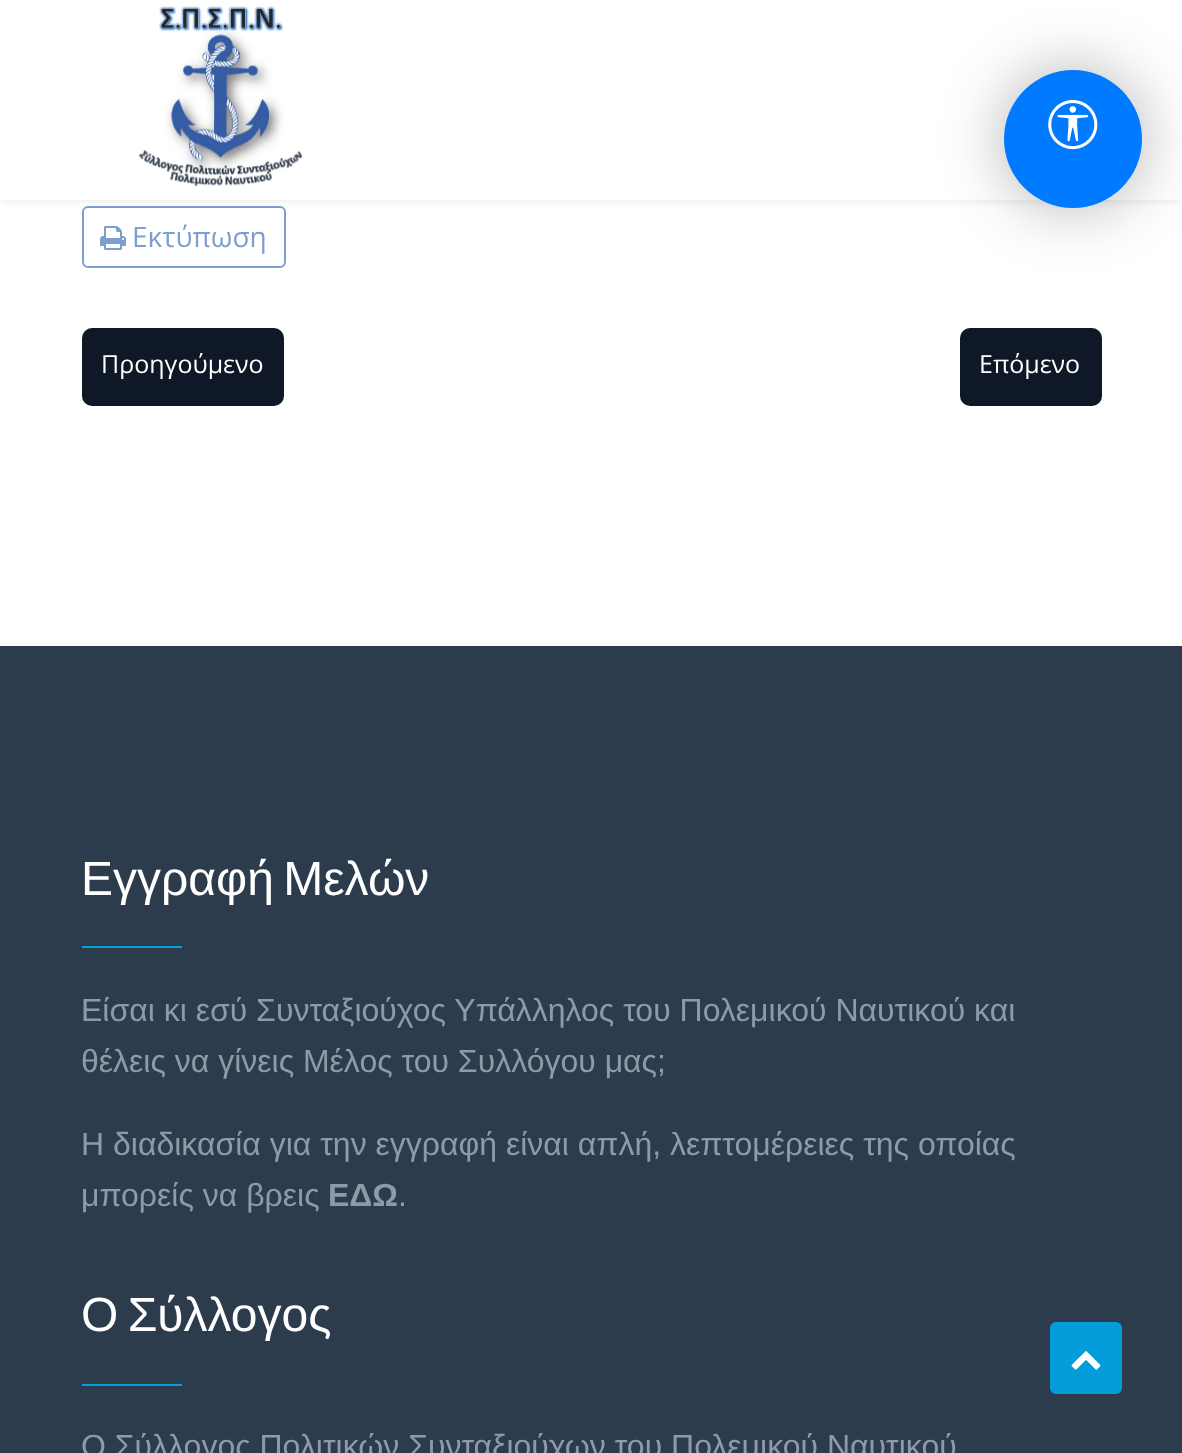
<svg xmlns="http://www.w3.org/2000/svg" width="1182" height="1453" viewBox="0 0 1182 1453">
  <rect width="100%" height="100%" fill="#fff"/>
  <rect x="83" y="207" width="202" height="60" rx="5" fill="none" stroke="#7d9fcf" stroke-width="2"/>
  <path d="M0 0h1182v200H0z" fill="#0000001a" filter="blur(4px)"/>
  <path d="M0 0h1182v200H0z" fill="#fff"/>
  <rect x="1004" y="70" width="138" height="138" rx="69" fill="#0000004d" filter="blur(32px)"/>
  <circle cx="1073" cy="139" r="69" fill="#007aff"/>
  <image x="1048" y="100" width="50" height="50" href="img/1.png"/>
  <image x="138" y="6" width="165" height="181" href="img/2.png"/>
  <image x="100" y="226" width="26" height="24" href="img/3.png"/>
  <rect x="82" y="328" width="202" height="78" rx="10" fill="#0e1826"/>
  <rect x="960" y="328" width="142" height="78" rx="10" fill="#0e1826"/>
  <path d="M0 646h1182v807H0z" fill="#2d3c4d"/>
  <path d="M82 946h100v2H82z" fill="#049cdb"/>
  <path d="M82 1384h100v2H82z" fill="#049cdb"/>
  <rect x="1050" y="1322" width="72" height="72" rx="6" fill="#049cdb"/>
  <image x="1071" y="1351" width="30" height="19" href="img/4.png"/>
  <text x="132" y="247" font-family="Open Sans" font-size="28" fill="#7d9fcf">Εκτύπωση</text>
  <g font-family="Open Sans" font-size="25" fill="#fff">
    <text x="101" y="373">Προηγούμενο</text>
    <text x="979" y="373">Επόμενο</text>
  </g>
  <text x="81" y="895" word-spacing="-4" font-family="Liberation Sans" font-size="48" fill="#fff">Εγγραφή Μελών</text>
  <g font-family="Liberation Sans" font-size="32" fill="#8e9aa7">
    <text x="81" y="1021">Είσαι κι εσύ Συνταξιούχος Υπάλληλος του Πολεμικού Ναυτικού και</text>
    <text x="81" y="1072">θέλεις να γίνεις Μέλος του Συλλόγου μας;</text>
    <text x="81" y="1155">Η διαδικασία για την εγγραφή είναι απλή, λεπτομέρειες της οποίας</text>
    <text x="81" y="1206">μπορείς να βρεις</text>
  </g>
  <text x="328" y="1206" font-family="Liberation Sans" font-size="32" font-weight="bold" fill="#8e9aa7">ΕΔΩ</text>
  <text x="398" y="1206" font-family="Liberation Sans" font-size="32" fill="#8e9aa7">.</text>
  <text x="81" y="1331" word-spacing="-4" font-family="Liberation Sans" font-size="48" fill="#fff">Ο Σύλλογος</text>
  <text x="81" y="1457" font-family="Liberation Sans" font-size="32" fill="#8e9aa7">Ο Σύλλογος Πολιτικών Συνταξιούχων του Πολεμικού Ναυτικού</text>
</svg>
